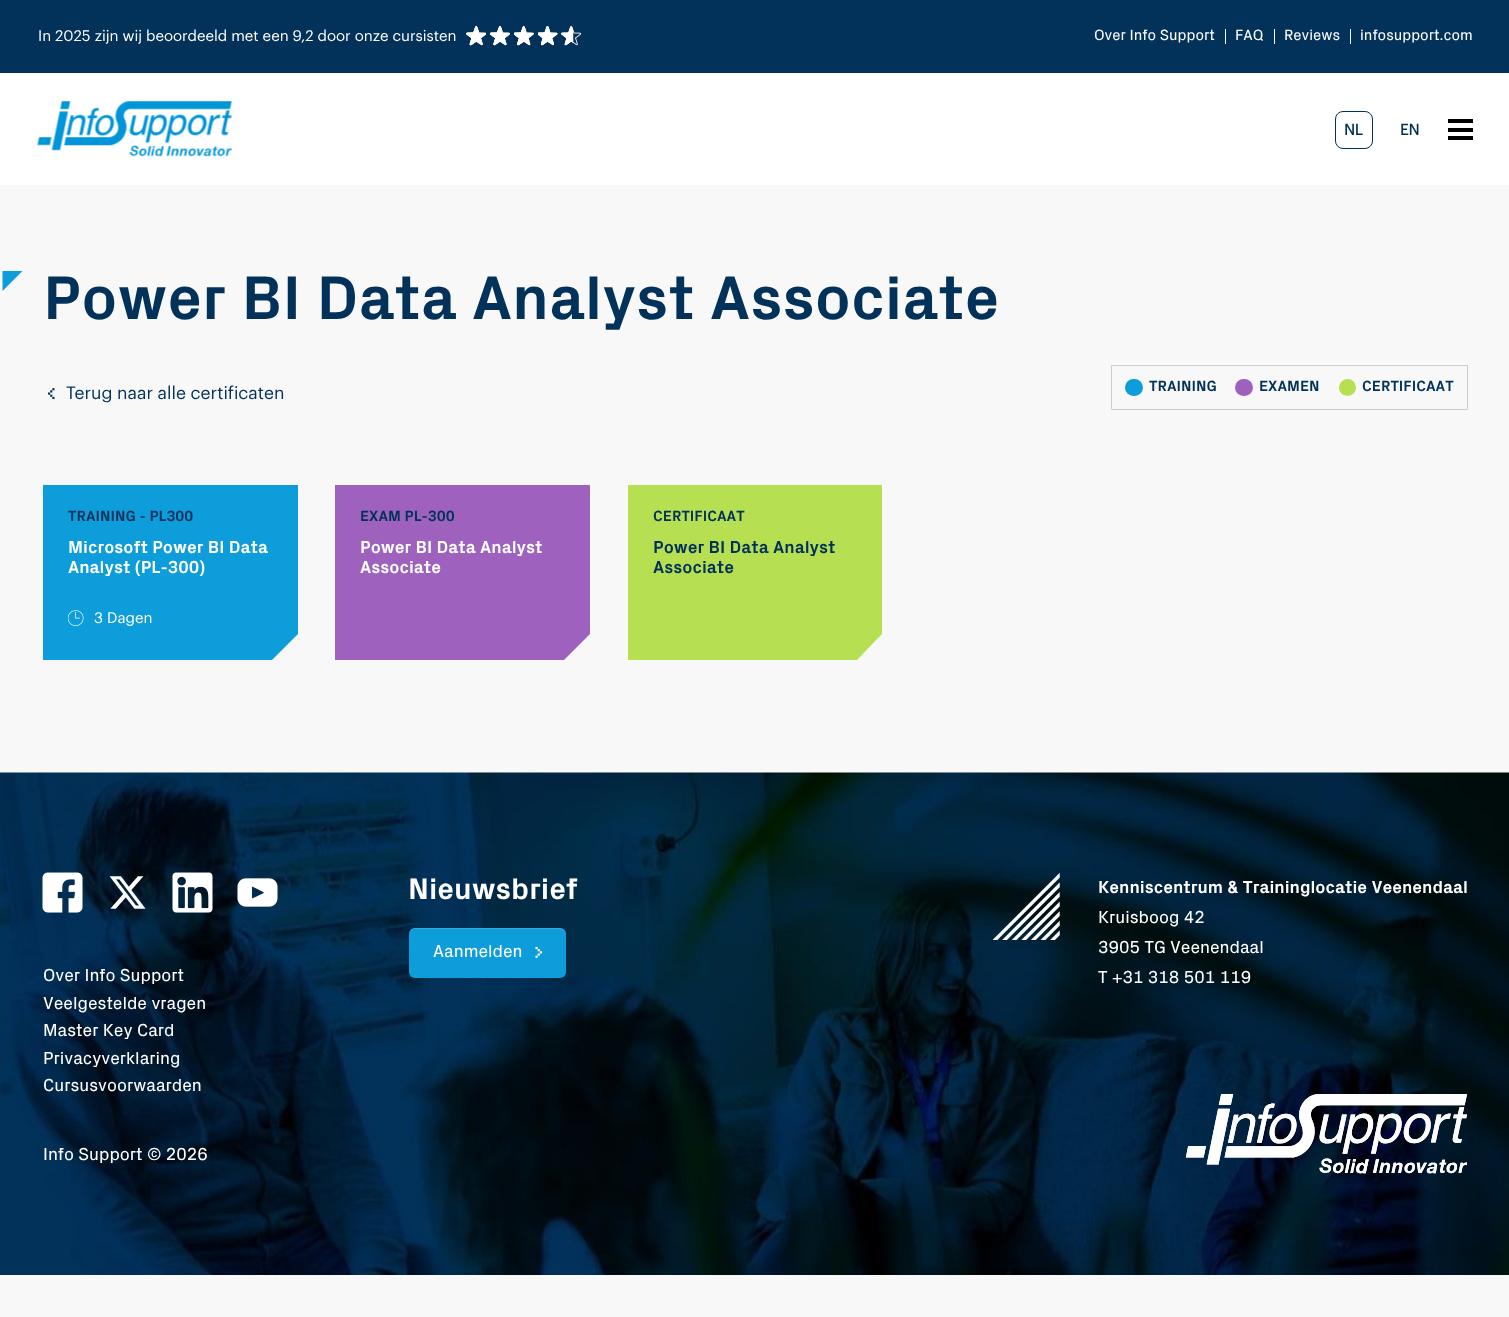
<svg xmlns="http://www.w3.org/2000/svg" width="1509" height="1317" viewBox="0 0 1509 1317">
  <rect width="100%" height="100%" fill="#f8f8f8"/>
  <path d="M0 0h1509v73H0z" fill="#02315a"/>
  <image x="466" y="26" width="20" height="20" href="img/1.png"/>
  <image x="490" y="26" width="20" height="20" href="img/2.png"/>
  <image x="514" y="26" width="20" height="20" href="img/3.png"/>
  <image x="538" y="26" width="20" height="20" href="img/4.png"/>
  <image x="561" y="26" width="20" height="20" href="img/5.png"/>
  <path d="M1225 29h1v15H1225z" fill="#fff"/>
  <path d="M1274 29h1v15H1274z" fill="#fff"/>
  <path d="M1350 29h1v15H1350z" fill="#fff"/>
  <path d="M0 73h1509v112H0z" fill="#fff"/>
  <image x="37" y="101" width="196" height="56" href="img/6.png"/>
  <rect x="1335.5" y="111.5" width="37" height="37" rx="7.5" fill="none" stroke="#02315a"/>
  <path d="M1448 119h25v4H1448z" fill="#000"/>
  <path d="M1448 128h25v4H1448z" fill="#000"/>
  <path d="M1448 136h25v4H1448z" fill="#000"/>
  <path d="M2.5 271H22.5L2.5 291Z" fill="#0d9ddb"/>
  <image x="47" y="388" width="8" height="12" href="img/7.png"/>
  <path d="M1111.5 365.5h356v44H1111.5z" fill="none" stroke="#ccc"/>
  <rect x="1125" y="379" width="18" height="17" rx="8.5" fill="#0d9ddb"/>
  <rect x="1235" y="379" width="18" height="17" rx="8.5" fill="#9e62be"/>
  <circle cx="1347.5" cy="387.5" r="8.5" fill="#b6e051"/>
  <path d="M43 485V660H272L298 634V485Z" fill="#0d9ddb"/>
  <image x="68" y="610" width="16" height="16" href="img/8.png"/>
  <path d="M335 485V660H564L590 634V485Z" fill="#9e62be"/>
  <path d="M628 485V660H857L882 634V485Z" fill="#b6e051"/>
  <image x="0" y="772" width="1509" height="503" href="img/9.png"/>
  <rect x="409" y="928" width="157" height="50" rx="6" fill="#0d9ddb"/>
  <path d="M415 929H560C563 929 566 932 566 935V934C566 931 563 928 560 928H415C412 928 409 931 409 934V935C409 932 412 929 415 929Z" fill="#ffffff26"/>
  <image x="535" y="946" width="8" height="12" href="img/10.png"/>
  <image x="42" y="872" width="41" height="41" href="img/11.png"/>
  <image x="109" y="876" width="37" height="33" href="img/12.png"/>
  <image x="172" y="872" width="41" height="41" href="img/13.png"/>
  <image x="237" y="878" width="41" height="29" href="img/14.png"/>
  <image x="993" y="873" width="67" height="67" href="img/15.png"/>
  <image x="1185" y="1094" width="282" height="80" href="img/16.png"/>
  <text x="38" y="41" font-family="graphik" font-size="15" fill="#fff">In 2025 zijn wij beoordeeld met een 9,2 door onze cursisten</text>
  <g font-family="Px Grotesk" font-size="15" fill="#fff">
    <text x="1094" y="40">Over Info Support</text>
    <text x="1235" y="40">FAQ</text>
    <text x="1284" y="40">Reviews</text>
    <text x="1360" y="40">infosupport.com</text>
  </g>
  <g font-family="graphik" font-size="15" font-weight="bold" fill="#02315a">
    <text x="1344" y="135">NL</text>
    <text x="1400" y="135">EN</text>
  </g>
  <text x="43" y="319" font-family="Px Grotesk" font-size="62.5" font-weight="bold" fill="#02315a">Power BI Data Analyst Associate</text>
  <text x="66" y="399" font-family="graphik" font-size="17.5" fill="#02315a">Terug naar alle certificaten</text>
  <g font-family="Px Grotesk" font-size="15" font-weight="bold" fill="#02315a">
    <text x="1149" y="391">TRAINING</text>
    <text x="1259" y="391">EXAMEN</text>
    <text x="1362" y="391">CERTIFICAAT</text>
    <text x="68" y="521">TRAINING - PL300</text>
  </g>
  <g font-family="Px Grotesk" font-size="17.5" font-weight="bold" fill="#fff">
    <text x="68" y="553">Microsoft Power BI Data</text>
    <text x="68" y="573">Analyst (PL-300)</text>
  </g>
  <text x="94" y="623" font-family="graphik" font-size="15" fill="#fff">3 Dagen</text>
  <text x="360" y="521" font-family="Px Grotesk" font-size="15" font-weight="bold" fill="#02315a">EXAM PL-300</text>
  <g font-family="Px Grotesk" font-size="17.5" font-weight="bold" fill="#fff">
    <text x="360" y="553">Power BI Data Analyst</text>
    <text x="360" y="573">Associate</text>
  </g>
  <text x="653" y="521" font-family="Px Grotesk" font-size="15" font-weight="bold" fill="#02315a">CERTIFICAAT</text>
  <g font-family="Px Grotesk" font-size="17.5" font-weight="bold" fill="#02315a">
    <text x="653" y="553">Power BI Data Analyst</text>
    <text x="653" y="573">Associate</text>
  </g>
  <text x="408" y="899" font-family="Px Grotesk" font-size="30" font-weight="bold" fill="#fff">Nieuwsbrief</text>
  <g font-family="Px Grotesk" font-size="17.5" fill="#fff">
    <text x="433" y="957">Aanmelden</text>
    <text x="43" y="981">Over Info Support</text>
    <text x="43" y="1009">Veelgestelde vragen</text>
    <text x="43" y="1036">Master Key Card</text>
    <text x="43" y="1064">Privacyverklaring</text>
    <text x="43" y="1091">Cursusvoorwaarden</text>
    <text x="43" y="1160">Info Support © 2026</text>
  </g>
  <text x="1098" y="893" font-family="Px Grotesk" font-size="17.5" font-weight="bold" fill="#fff">Kenniscentrum &amp; Traininglocatie Veenendaal</text>
  <g font-family="Px Grotesk" font-size="17.5" fill="#fff">
    <text x="1098" y="923">Kruisboog 42</text>
    <text x="1098" y="953">3905 TG Veenendaal</text>
    <text x="1098" y="983">T +31 318 501 119</text>
  </g>
</svg>
